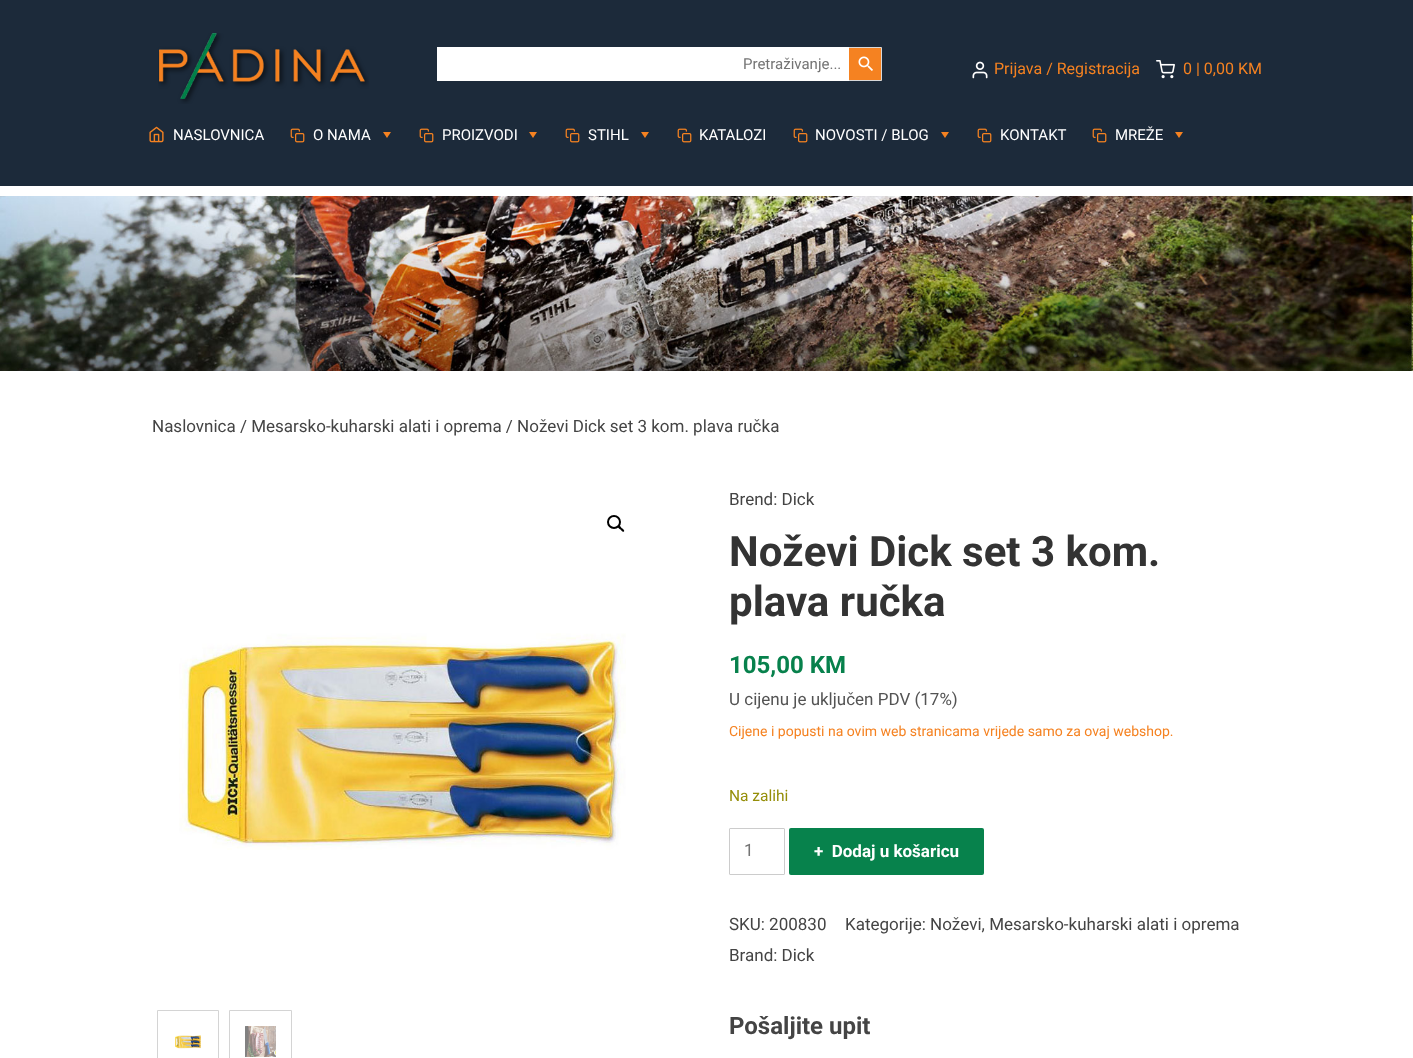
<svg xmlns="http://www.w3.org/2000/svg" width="1413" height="1058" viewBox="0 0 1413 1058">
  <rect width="100%" height="100%" fill="#fff"/>
  <path d="M0 0h1413v186H0z" fill="#1c2a3a"/>
  <image x="158" y="33" width="211" height="71" href="img/1.png"/>
  <path d="M848.5 47.5h33v33H848.5z" fill="#f58221" stroke="#d8d8d8"/>
  <path d="M437 47h412v34H437z" fill="#fff"/>
  <image x="858" y="56" width="15" height="15" href="img/2.png"/>
  <image x="972" y="61" width="16" height="18" href="img/3.png"/>
  <image x="1156" y="60" width="19" height="19" href="img/4.png"/>
  <image x="149" y="126" width="15" height="17" href="img/5.png"/>
  <image x="290" y="128" width="15" height="15" href="img/6.png"/>
  <path d="M383 132H391L387 138Z" fill="#f58221"/>
  <image x="419" y="128" width="15" height="15" href="img/6.png"/>
  <path d="M529 132H537L533 138Z" fill="#f58221"/>
  <image x="565" y="128" width="15" height="15" href="img/6.png"/>
  <path d="M641 132H649L645 138Z" fill="#f58221"/>
  <image x="677" y="128" width="15" height="15" href="img/6.png"/>
  <image x="793" y="128" width="15" height="15" href="img/6.png"/>
  <path d="M941 132H949L945 138Z" fill="#f58221"/>
  <image x="977" y="128" width="15" height="15" href="img/6.png"/>
  <image x="1092" y="128" width="15" height="15" href="img/6.png"/>
  <path d="M1175 132H1183L1179 138Z" fill="#f58221"/>
  <image x="0" y="196" width="1413" height="175" href="img/7.png"/>
  <circle cx="614" cy="522" r="6" fill="none" stroke="#000" stroke-width="2"/>
  <path d="M618 526C619.5 524.5 621 527.5 621.5 528C622.5 528.5 625 530.5 624 531.5C622.5 532.5 621 530 620.5 529.5C619.5 529 617 527 618 526Z" fill="#000"/>
  <image x="179" y="633" width="447" height="217" href="img/8.png"/>
  <path d="M157.5 1010.5h61v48H157.5z" fill="none" stroke="#d4d4d4"/>
  <image x="175" y="1035" width="26" height="14" href="img/9.png"/>
  <path d="M229.5 1010.5h62v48H229.5z" fill="none" stroke="#d4d4d4"/>
  <image x="245" y="1026" width="31" height="31" href="img/10.png"/>
  <rect x="729.5" y="828.5" width="55" height="46" rx="0.5" fill="none" stroke="#ccc"/>
  <rect x="789" y="828" width="195" height="47" rx="2" fill="#07824c"/>
  <text x="743" y="69" font-family="Roboto" font-size="15" fill="#747474">Pretraživanje...</text>
  <g font-family="Roboto" font-size="16" fill="#f58221">
    <text x="994" y="74">Prijava / Registracija</text>
    <text x="1183" y="74">0 | 0,00 KM</text>
  </g>
  <g font-family="Roboto" font-size="15" fill="#fff">
    <text x="173" y="140">NASLOVNICA</text>
    <text x="313" y="140">O NAMA</text>
    <text x="442" y="140">PROIZVODI</text>
    <text x="588" y="140">STIHL</text>
    <text x="699" y="140">KATALOZI</text>
    <text x="815" y="140">NOVOSTI / BLOG</text>
    <text x="1000" y="140">KONTAKT</text>
    <text x="1115" y="140">MREŽE</text>
  </g>
  <g font-family="Roboto" font-size="17" fill="#444">
    <text x="152" y="432">Naslovnica / Mesarsko-kuharski alati i oprema / Noževi Dick set 3 kom. plava ručka</text>
    <text x="729" y="505">Brend: Dick</text>
  </g>
  <g font-family="Roboto" font-size="42" font-weight="bold" fill="#333">
    <text x="729" y="566">Noževi Dick set 3 kom.</text>
    <text x="729" y="616">plava ručka</text>
  </g>
  <text x="729" y="673" font-family="Roboto" font-size="24" font-weight="bold" fill="#07814c">105,00 KM</text>
  <text x="729" y="705" font-family="Roboto" font-size="17" fill="#545454">U cijenu je uključen PDV (17%)</text>
  <text x="729" y="736" font-family="Roboto" font-size="14" fill="#f58221">Cijene i popusti na ovim web stranicama vrijede samo za ovaj webshop.</text>
  <text x="729" y="801" font-family="Roboto" font-size="15.5" fill="#958e09">Na zalihi</text>
  <text x="744" y="856" font-family="Roboto" font-size="17" fill="#747474">1</text>
  <text x="814" y="857" font-family="Roboto" font-size="17" font-weight="bold" fill="#fff" xml:space="preserve">+  Dodaj u košaricu</text>
  <g font-family="Roboto" font-size="17" fill="#444">
    <text x="729" y="930">SKU: 200830</text>
    <text x="845" y="930">Kategorije: Noževi, Mesarsko-kuharski alati i oprema</text>
    <text x="729" y="961">Brand: Dick</text>
  </g>
  <text x="729" y="1034" font-family="Roboto" font-size="24" font-weight="bold" fill="#444">Pošaljite upit</text>
</svg>
